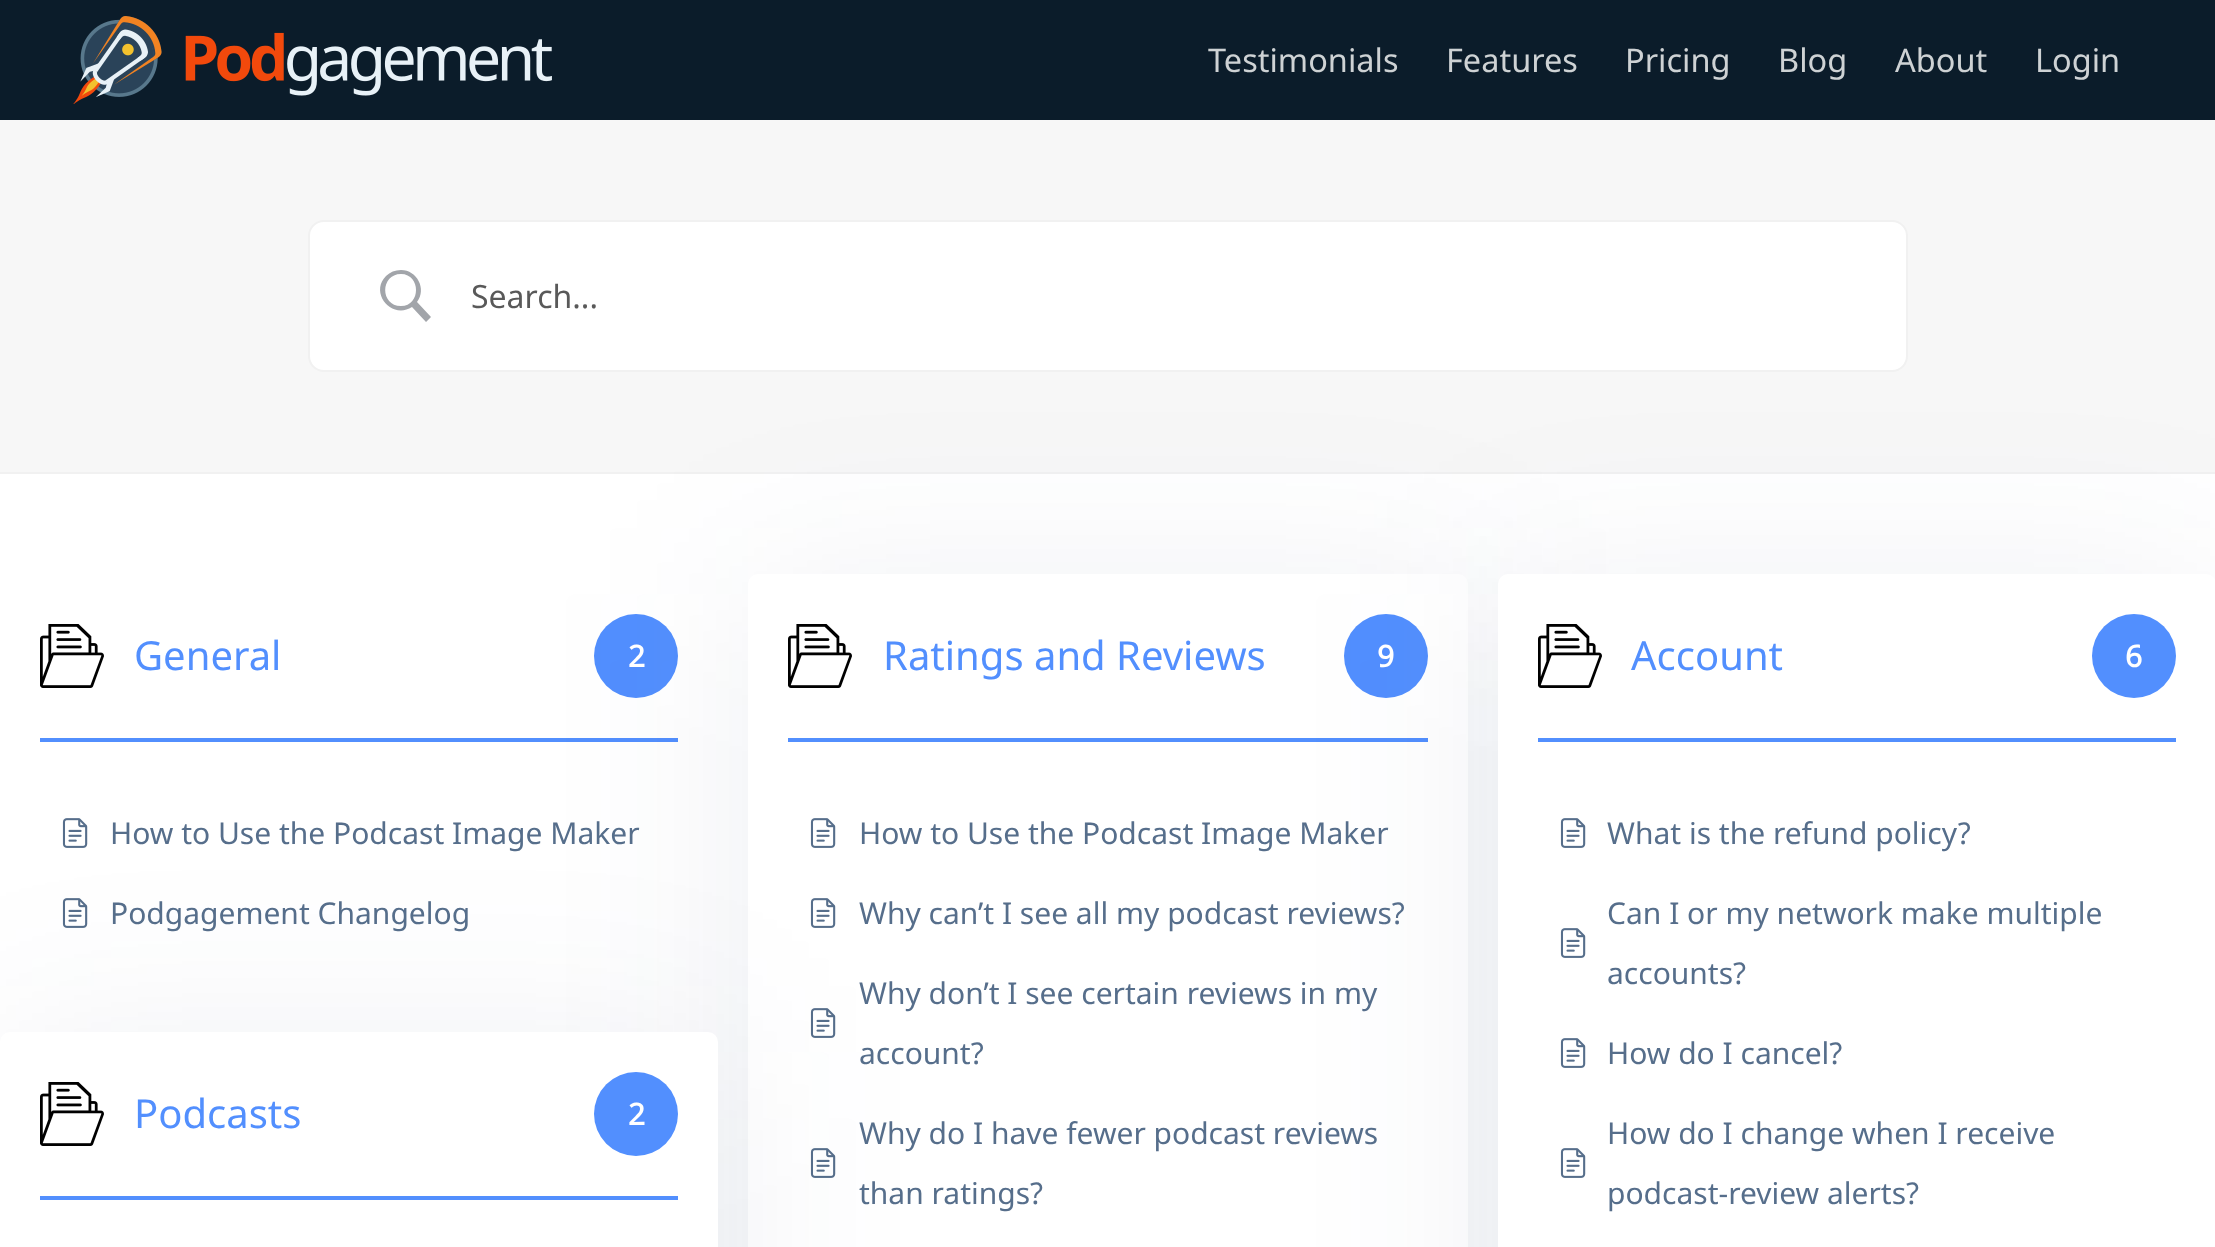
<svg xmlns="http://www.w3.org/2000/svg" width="2215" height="1247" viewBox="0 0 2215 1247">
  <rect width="100%" height="100%" fill="#fff"/>
  <path d="M0 0h2215v120H0z" fill="#0b1c2a"/>
  <image x="73" y="16" width="479" height="88" href="img/1.png"/>
  <path d="M0 120h2215v352H0z" fill="#f7f7f7"/>
  <path d="M0 472h2215v2H0z" fill="#f1f1f1"/>
  <rect x="309" y="221" width="1598" height="150" rx="15" fill="#fff" stroke="#f1f1f1" stroke-width="2"/>
  <path d="M401 270C395 270 390 272 386 276C369 293 392 320 412 307L426 322L431 317L417 302C427 289 417 270 401 270ZM401 274C421 274 421 306 401 306C380 306 380 274 401 274Z" fill="#a2a5aa"/>
  <path d="M40 738h638v4H40z" fill="#528ffe"/>
  <image x="40" y="624" width="64" height="64" href="img/2.png"/>
  <circle cx="636" cy="656" r="42" fill="#528ffe"/>
  <image x="62" y="818" width="26" height="30" href="img/3.png"/>
  <image x="62" y="898" width="26" height="30" href="img/3.png"/>
  <rect x="748" y="594" width="720" height="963" rx="10" fill="#282f6214" filter="blur(100px)"/>
  <rect x="748" y="574" width="720" height="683" rx="10" fill="#fff"/>
  <path d="M788 738h640v4H788z" fill="#528ffe"/>
  <image x="788" y="624" width="64" height="64" href="img/2.png"/>
  <circle cx="1386" cy="656" r="42" fill="#528ffe"/>
  <image x="810" y="818" width="26" height="30" href="img/3.png"/>
  <image x="810" y="898" width="26" height="30" href="img/3.png"/>
  <image x="810" y="1008" width="26" height="30" href="img/3.png"/>
  <image x="810" y="1148" width="26" height="30" href="img/3.png"/>
  <rect x="1498" y="594" width="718" height="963" rx="10" fill="#282f6214" filter="blur(100px)"/>
  <rect x="1498" y="574" width="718" height="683" rx="10" fill="#fff"/>
  <path d="M1538 738h638v4H1538z" fill="#528ffe"/>
  <image x="1538" y="624" width="64" height="64" href="img/2.png"/>
  <circle cx="2134" cy="656" r="42" fill="#528ffe"/>
  <image x="1560" y="818" width="26" height="30" href="img/3.png"/>
  <image x="1560" y="928" width="26" height="30" href="img/3.png"/>
  <image x="1560" y="1038" width="26" height="30" href="img/3.png"/>
  <image x="1560" y="1148" width="26" height="30" href="img/3.png"/>
  <rect y="1052" width="718" height="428" rx="10" fill="#282f6214" filter="blur(100px)"/>
  <rect y="1032" width="718" height="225" rx="10" fill="#fff"/>
  <path d="M40 1196h638v4H40z" fill="#528ffe"/>
  <image x="40" y="1082" width="64" height="64" href="img/2.png"/>
  <circle cx="636" cy="1114" r="42" fill="#528ffe"/>
  <g font-family="Noto Sans" font-size="32.5" fill="#ced2d4">
    <text x="1208" y="72">Testimonials</text>
    <text x="1446" y="72">Features</text>
    <text x="1625" y="72">Pricing</text>
    <text x="1778" y="72">Blog</text>
    <text x="1895" y="72">About</text>
    <text x="2035" y="72">Login</text>
  </g>
  <text x="471" y="308" font-family="Noto Sans" font-size="32" fill="#595959">Search...</text>
  <text x="134" y="670" font-family="Noto Sans" font-size="40" fill="#528ffe">General</text>
  <text x="628" y="667" font-family="Noto Sans" font-size="30" font-weight="bold" fill="#fff">2</text>
  <g font-family="Noto Sans" font-size="30" fill="#566e8b">
    <text x="110" y="844">How to Use the Podcast Image Maker</text>
    <text x="110" y="924">Podgagement Changelog</text>
  </g>
  <text x="883" y="670" font-family="Noto Sans" font-size="40" fill="#528ffe">Ratings and Reviews</text>
  <text x="1377" y="667" font-family="Noto Sans" font-size="30" font-weight="bold" fill="#fff">9</text>
  <g font-family="Noto Sans" font-size="30" fill="#566e8b">
    <text x="859" y="844">How to Use the Podcast Image Maker</text>
    <text x="859" y="924">Why can’t I see all my podcast reviews?</text>
    <text x="859" y="1004">Why don’t I see certain reviews in my</text>
    <text x="859" y="1064">account?</text>
    <text x="859" y="1144">Why do I have fewer podcast reviews</text>
    <text x="859" y="1204">than ratings?</text>
  </g>
  <text x="1631" y="670" font-family="Noto Sans" font-size="40" fill="#528ffe">Account</text>
  <text x="2125" y="667" font-family="Noto Sans" font-size="30" font-weight="bold" fill="#fff">6</text>
  <g font-family="Noto Sans" font-size="30" fill="#566e8b">
    <text x="1607" y="844">What is the refund policy?</text>
    <text x="1607" y="924">Can I or my network make multiple</text>
    <text x="1607" y="984">accounts?</text>
    <text x="1607" y="1064">How do I cancel?</text>
    <text x="1607" y="1144">How do I change when I receive</text>
    <text x="1607" y="1204">podcast-review alerts?</text>
  </g>
  <text x="134" y="1128" font-family="Noto Sans" font-size="40" fill="#528ffe">Podcasts</text>
  <text x="628" y="1125" font-family="Noto Sans" font-size="30" font-weight="bold" fill="#fff">2</text>
</svg>
